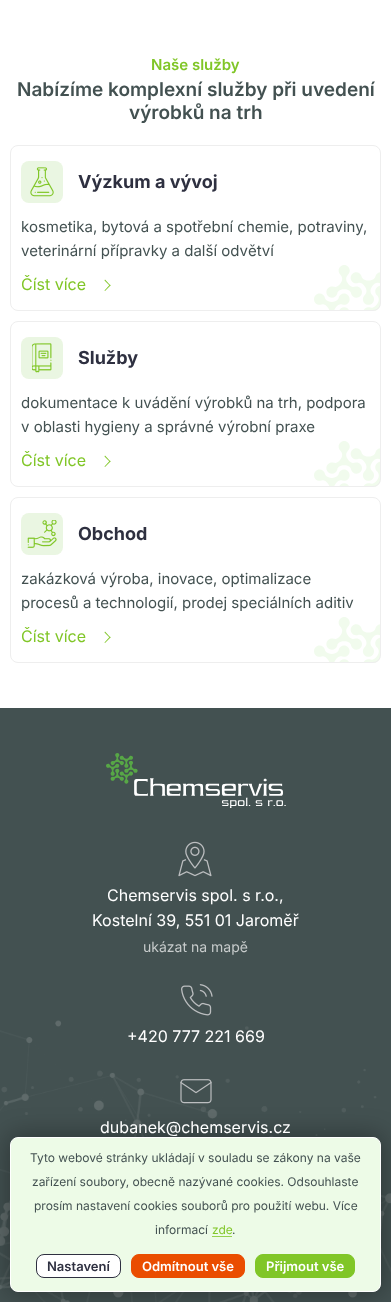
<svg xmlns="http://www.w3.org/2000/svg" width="391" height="1302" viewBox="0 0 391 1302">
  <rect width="100%" height="100%" fill="#fff"/>
  <image x="314" y="265" width="67" height="46" href="img/1.png"/>
  <rect x="10.5" y="145.5" width="370" height="165" rx="7.5" fill="none" stroke="#eee"/>
  <rect x="21" y="161" width="42" height="42" rx="8" fill="#eaf6e2"/>
  <image x="30" y="167" width="24" height="30" href="img/2.png"/>
  <path d="M105 279.5L110.5 285.5L110 286L104.5 280.5Z" fill="#80c627"/>
  <path d="M110 284.5L110.5 285.5L105 291L104.5 290.5Z" fill="#80c627"/>
  <image x="314" y="441" width="67" height="46" href="img/3.png"/>
  <rect x="10.5" y="321.5" width="370" height="165" rx="7.5" fill="none" stroke="#eee"/>
  <rect x="21" y="337" width="42" height="42" rx="8" fill="#eaf6e2"/>
  <image x="32" y="343" width="20" height="30" href="img/4.png"/>
  <path d="M105 455.5L110.5 461.5L110 462L104.5 456.5Z" fill="#80c627"/>
  <path d="M110 460.5L110.5 461.5L105 467L104.5 466.5Z" fill="#80c627"/>
  <image x="314" y="617" width="67" height="46" href="img/5.png"/>
  <rect x="10.5" y="497.5" width="370" height="165" rx="7.5" fill="none" stroke="#eee"/>
  <rect x="21" y="513" width="42" height="42" rx="8" fill="#eaf6e2"/>
  <image x="27" y="520" width="30" height="28" href="img/6.png"/>
  <path d="M105 631.5L110.5 637.5L110 638L104.5 632.5Z" fill="#80c627"/>
  <path d="M110 636.5L110.5 637.5L105 643L104.5 642.5Z" fill="#80c627"/>
  <path d="M0 708h391v594H0z" fill="#435151"/>
  <image x="0" y="1020" width="391" height="282" href="img/7.png"/>
  <image x="106" y="753" width="180" height="55" href="img/8.png"/>
  <image x="178" y="841" width="34" height="36" href="img/9.png"/>
  <image x="181" y="984" width="32" height="32" href="img/10.png"/>
  <image x="180" y="1079" width="32" height="25" href="img/11.png"/>
  <rect x="7" y="1134" width="377" height="161" rx="11" fill="#0000004d" filter="blur(12.5px)"/>
  <rect x="10.5" y="1137.5" width="370" height="154" rx="7.5" fill="#edfbe7" stroke="#fff"/>
  <path d="M212 1236h20v1H212z" fill="#96d14d"/>
  <rect x="36.5" y="1254.5" width="84" height="23" rx="7.5" fill="#fff" stroke="#2e3040"/>
  <rect x="131.5" y="1254.5" width="113" height="23" rx="7.5" fill="#ea4d00" stroke="#ea4d00"/>
  <rect x="255.5" y="1254.5" width="99" height="23" rx="7.5" fill="#80c627" stroke="#80c627"/>
  <text x="151" y="70" font-family="Inter" font-size="15" font-weight="600" fill="#80c627">Naše služby</text>
  <g font-family="Inter" font-size="19" font-weight="600" fill="#435151">
    <text x="17" y="96">Nabízíme komplexní služby při uvedení</text>
    <text x="129" y="119">výrobků na trh</text>
  </g>
  <text x="78" y="188" font-family="Inter" font-size="18" font-weight="bold" fill="#2e3040">Výzkum a vývoj</text>
  <g font-family="Inter" font-size="15" fill="#435151">
    <text x="21" y="232">kosmetika, bytová a spotřební chemie, potraviny,</text>
    <text x="21" y="256">veterinární přípravky a další odvětví</text>
  </g>
  <text x="21" y="290" font-family="Inter" font-size="16" fill="#80c627">Číst více</text>
  <text x="78" y="364" font-family="Inter" font-size="18" font-weight="bold" fill="#2e3040">Služby</text>
  <g font-family="Inter" font-size="15" fill="#435151">
    <text x="21" y="408">dokumentace k uvádění výrobků na trh, podpora</text>
    <text x="21" y="432">v oblasti hygieny a správné výrobní praxe</text>
  </g>
  <text x="21" y="466" font-family="Inter" font-size="16" fill="#80c627">Číst více</text>
  <text x="78" y="540" font-family="Inter" font-size="18" font-weight="bold" fill="#2e3040">Obchod</text>
  <g font-family="Inter" font-size="15" fill="#435151">
    <text x="21" y="584">zakázková výroba, inovace, optimalizace</text>
    <text x="21" y="608">procesů a technologií, prodej speciálních aditiv</text>
  </g>
  <text x="21" y="642" font-family="Inter" font-size="16" fill="#80c627">Číst více</text>
  <g font-family="Inter" font-size="16" fill="#fff">
    <text x="107" y="901">Chemservis spol. s r.o.,</text>
    <text x="92" y="926">Kostelní 39, 551 01 Jaroměř</text>
  </g>
  <text x="143" y="952" font-family="Inter" font-size="14" fill="#c7cbcb">ukázat na mapě</text>
  <g font-family="Inter" font-size="16" fill="#fff">
    <text x="127" y="1042">+420 777 221 669</text>
    <text x="100" y="1133">dubanek@chemservis.cz</text>
  </g>
  <g font-family="Inter" font-size="12" fill="#435151">
    <text x="30" y="1162">Tyto webové stránky ukládají v souladu se zákony na vaše</text>
    <text x="32" y="1186">zařízení soubory, obecně nazývané cookies. Odsouhlaste</text>
    <text x="34" y="1210">prosím nastavení cookies souborů pro použití webu. Více</text>
    <text x="155" y="1234">informací</text>
  </g>
  <text x="212" y="1234" font-family="Inter" font-size="12" fill="#80c627">zde</text>
  <text x="232" y="1234" font-family="Inter" font-size="12" fill="#435151">.</text>
  <text x="47" y="1271" font-family="Inter" font-size="13" font-weight="600" fill="#2e3040">Nastavení</text>
  <g font-family="Inter" font-size="13" font-weight="600" fill="#fff">
    <text x="142" y="1271">Odmítnout vše</text>
    <text x="266" y="1271">Přijmout vše</text>
  </g>
</svg>
